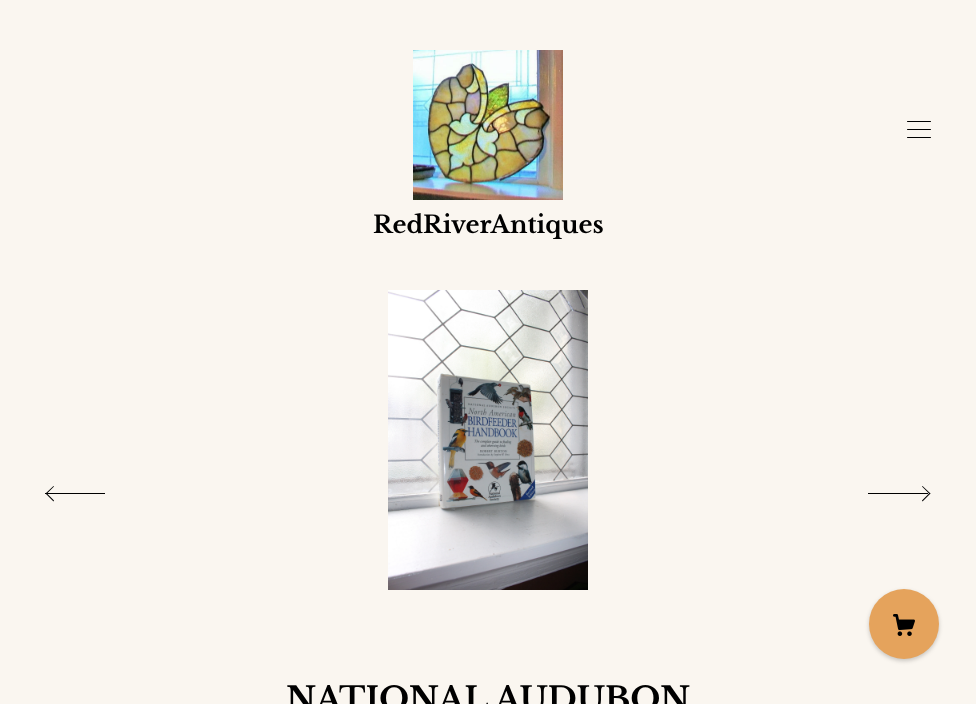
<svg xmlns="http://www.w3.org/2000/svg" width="976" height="704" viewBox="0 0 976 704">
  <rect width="100%" height="100%" fill="#faf6f0"/>
  <image x="413" y="50" width="150" height="150" href="img/1.png"/>
  <rect x="907" y="121" width="24" height="1" rx="0.5" fill="#000"/>
  <rect x="907" y="129" width="24" height="1" rx="0.5" fill="#000"/>
  <rect x="907" y="137" width="24" height="1" rx="0.5" fill="#000"/>
  <rect x="869" y="591" width="70" height="70" rx="35" fill="#00000033" filter="blur(2px)"/>
  <circle cx="904" cy="624" r="35" fill="#e5a35c"/>
  <image x="893" y="614" width="22" height="22" href="img/2.png"/>
  <image x="388" y="290" width="200" height="300" href="img/3.png"/>
  <path d="M54 500.5L53.5 501.5L45.5 493.5L46.5 493Z" fill="#000"/>
  <path d="M54 486.5L46.5 494L45.5 493.5L53.5 486Z" fill="#000"/>
  <path d="M45 493h60v1H45z" fill="#000"/>
  <path d="M922 486.5L922.5 486L930.5 493.5L929.5 494Z" fill="#000"/>
  <path d="M922 500.5L929.5 493L930.5 493.5L922.5 501.5Z" fill="#000"/>
  <path d="M868 493h60v1H868z" fill="#000"/>
  <text x="373" y="233" font-family="Libre Baskerville" font-size="24" font-weight="bold" fill="#000">RedRiverAntiques</text>
  <text x="286" y="710" font-family="Libre Baskerville" font-size="32" font-weight="bold" fill="#000">NATIONAL AUDUBON</text>
</svg>
